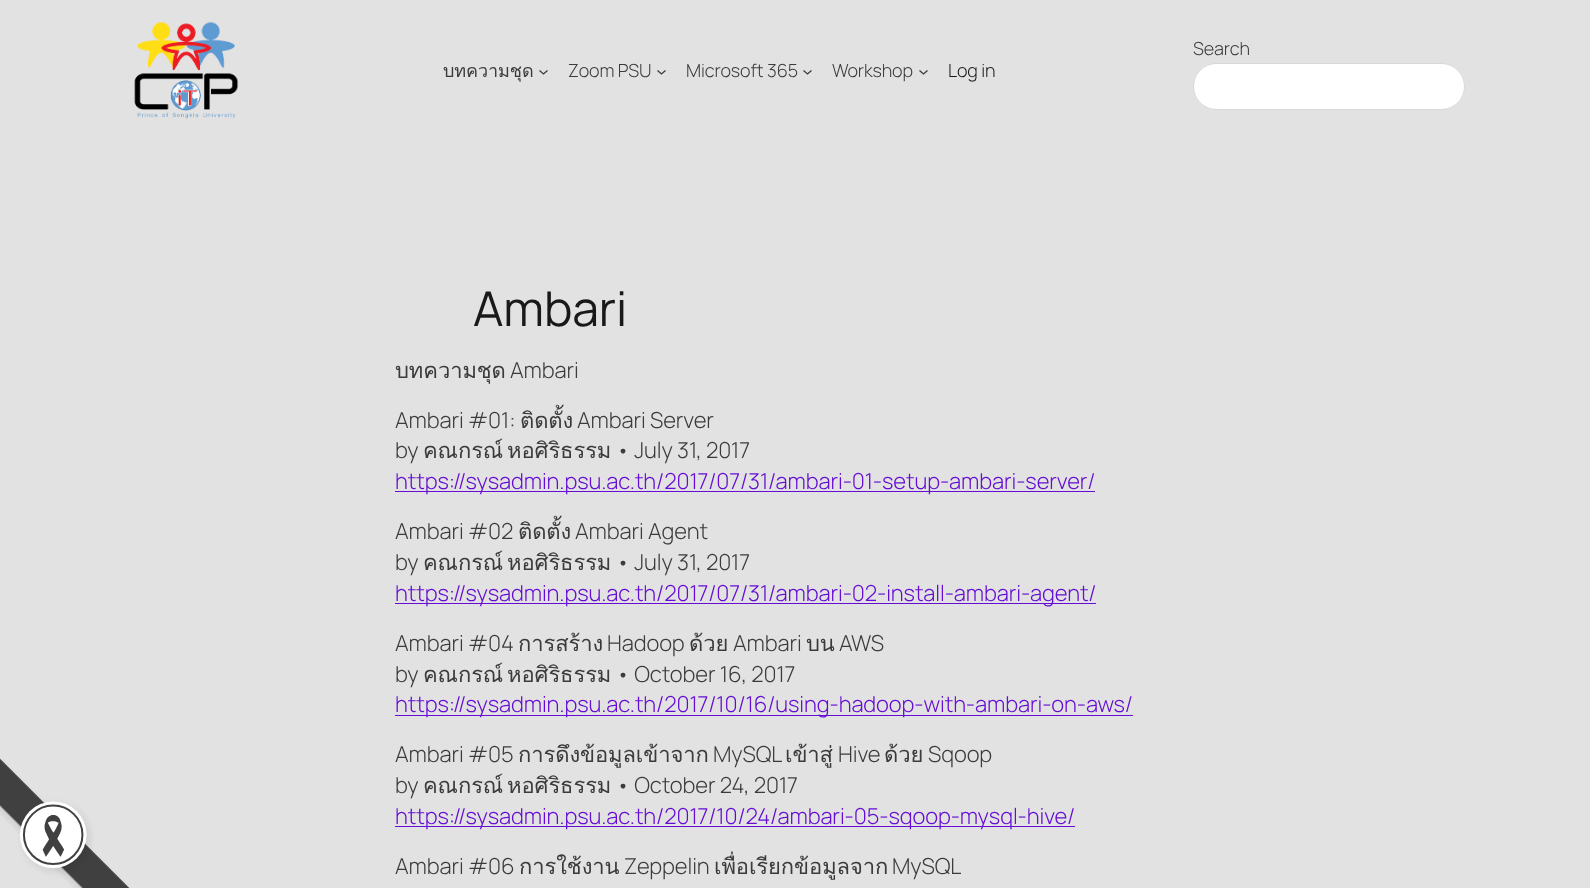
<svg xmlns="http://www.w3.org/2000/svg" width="1590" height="888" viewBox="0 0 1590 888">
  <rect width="100%" height="100%" fill="#e2e2e2"/>
  <image x="0" y="758" width="130" height="130" href="img/1.png"/>
  <image x="134" y="21" width="105" height="98" href="img/2.png"/>
  <rect x="1193" y="63" width="272" height="47" rx="23.5" fill="#fff"/>
  <rect x="1193.5" y="63.5" width="271" height="46" rx="23" fill="none" stroke="#3b3b3b33"/>
  <path d="M539.5 70.5L543.5 74L547.5 70.5" fill="none" stroke="#3b3b3b" stroke-width="1.3"/>
  <path d="M657.5 70.5L661.5 74L665.5 70.5" fill="none" stroke="#3b3b3b" stroke-width="1.3"/>
  <path d="M803.5 70.5L807.5 74L811.5 70.5" fill="none" stroke="#3b3b3b" stroke-width="1.3"/>
  <path d="M919.5 70.5L923.5 74L927.5 70.5" fill="none" stroke="#3b3b3b" stroke-width="1.3"/>
  <path d="M395 491h700v1H395z" fill="#650dd4"/>
  <path d="M395 603h701v1H395z" fill="#650dd4"/>
  <path d="M395 715h738v1H395z" fill="#650dd4"/>
  <path d="M395 826h680v1H395z" fill="#650dd4"/>
  <text x="1193" y="55" font-family="Manrope" font-size="18" font-weight="300" letter-spacing="-0.1" fill="#3b3b3b">Search</text>
  <text x="443" y="77" font-family="Loma" font-size="18" letter-spacing="-0.1" fill="#3b3b3b">บทความชุด</text>
  <g font-family="Manrope" font-size="18" font-weight="300" letter-spacing="-0.1" fill="#3b3b3b">
    <text x="568" y="77">Zoom PSU</text>
    <text x="686" y="77">Microsoft 365</text>
    <text x="832" y="77">Workshop</text>
  </g>
  <text x="948" y="77" font-family="Manrope" font-size="18" font-weight="300" letter-spacing="-0.1" fill="#191919">Log in</text>
  <text x="473" y="326" font-family="Manrope" font-size="48" letter-spacing="-0.1" fill="#191919">Ambari</text>
  <text x="395" y="378" font-family="Loma" font-size="22" letter-spacing="-0.1" fill="#3b3b3b">บทความชุด</text>
  <g font-family="Manrope" font-size="22" font-weight="300" letter-spacing="-0.1" fill="#3b3b3b">
    <text x="510" y="378">Ambari</text>
    <text x="395" y="428">Ambari #01:</text>
  </g>
  <text x="520" y="428" font-family="Loma" font-size="22" letter-spacing="-0.1" fill="#3b3b3b">ติดตั้ง</text>
  <g font-family="Manrope" font-size="22" font-weight="300" letter-spacing="-0.1" fill="#3b3b3b">
    <text x="577" y="428">Ambari Server</text>
    <text x="395" y="458">by</text>
  </g>
  <g font-family="Loma" font-size="22" letter-spacing="-0.1" fill="#3b3b3b">
    <text x="423" y="458">คณกรณ์</text>
    <text x="507" y="458">หอศิริธรรม</text>
  </g>
  <text x="616" y="458" font-family="Manrope" font-size="22" font-weight="300" letter-spacing="-0.1" fill="#3b3b3b">• July 31, 2017</text>
  <text x="395" y="489" font-family="Manrope" font-size="22" font-weight="300" letter-spacing="-0.1" fill="#650dd4">https://sysadmin.psu.ac.th/2017/07/31/ambari-01-setup-ambari-server/</text>
  <text x="395" y="539" font-family="Manrope" font-size="22" font-weight="300" letter-spacing="-0.1" fill="#3b3b3b">Ambari #02</text>
  <text x="518" y="539" font-family="Loma" font-size="22" letter-spacing="-0.1" fill="#3b3b3b">ติดตั้ง</text>
  <g font-family="Manrope" font-size="22" font-weight="300" letter-spacing="-0.1" fill="#3b3b3b">
    <text x="575" y="539">Ambari Agent</text>
    <text x="395" y="570">by</text>
  </g>
  <g font-family="Loma" font-size="22" letter-spacing="-0.1" fill="#3b3b3b">
    <text x="423" y="570">คณกรณ์</text>
    <text x="507" y="570">หอศิริธรรม</text>
  </g>
  <text x="616" y="570" font-family="Manrope" font-size="22" font-weight="300" letter-spacing="-0.1" fill="#3b3b3b">• July 31, 2017</text>
  <text x="395" y="601" font-family="Manrope" font-size="22" font-weight="300" letter-spacing="-0.1" fill="#650dd4">https://sysadmin.psu.ac.th/2017/07/31/ambari-02-install-ambari-agent/</text>
  <text x="395" y="651" font-family="Manrope" font-size="22" font-weight="300" letter-spacing="-0.1" fill="#3b3b3b">Ambari #04</text>
  <text x="518" y="651" font-family="Loma" font-size="22" letter-spacing="-0.1" fill="#3b3b3b">การสร้าง</text>
  <text x="607" y="651" font-family="Manrope" font-size="22" font-weight="300" letter-spacing="-0.1" fill="#3b3b3b">Hadoop</text>
  <text x="689" y="651" font-family="Loma" font-size="22" letter-spacing="-0.1" fill="#3b3b3b">ด้วย</text>
  <text x="733" y="651" font-family="Manrope" font-size="22" font-weight="300" letter-spacing="-0.1" fill="#3b3b3b">Ambari</text>
  <text x="806" y="651" font-family="Loma" font-size="22" letter-spacing="-0.1" fill="#3b3b3b">บน</text>
  <g font-family="Manrope" font-size="22" font-weight="300" letter-spacing="-0.1" fill="#3b3b3b">
    <text x="839" y="651">AWS</text>
    <text x="395" y="682">by</text>
  </g>
  <g font-family="Loma" font-size="22" letter-spacing="-0.1" fill="#3b3b3b">
    <text x="423" y="682">คณกรณ์</text>
    <text x="507" y="682">หอศิริธรรม</text>
  </g>
  <text x="616" y="682" font-family="Manrope" font-size="22" font-weight="300" letter-spacing="-0.1" fill="#3b3b3b">• October 16, 2017</text>
  <text x="395" y="712" font-family="Manrope" font-size="22" font-weight="300" letter-spacing="-0.1" fill="#650dd4">https://sysadmin.psu.ac.th/2017/10/16/using-hadoop-with-ambari-on-aws/</text>
  <text x="395" y="762" font-family="Manrope" font-size="22" font-weight="300" letter-spacing="-0.1" fill="#3b3b3b">Ambari #05</text>
  <text x="518" y="762" font-family="Loma" font-size="22" letter-spacing="-0.1" fill="#3b3b3b">การดึงข้อมูลเข้าจาก</text>
  <text x="713" y="762" font-family="Manrope" font-size="22" font-weight="300" letter-spacing="-0.1" fill="#3b3b3b">MySQL</text>
  <text x="785" y="762" font-family="Loma" font-size="22" letter-spacing="-0.1" fill="#3b3b3b">เข้าสู่</text>
  <text x="838" y="762" font-family="Manrope" font-size="22" font-weight="300" letter-spacing="-0.1" fill="#3b3b3b">Hive</text>
  <text x="884" y="762" font-family="Loma" font-size="22" letter-spacing="-0.1" fill="#3b3b3b">ด้วย</text>
  <g font-family="Manrope" font-size="22" font-weight="300" letter-spacing="-0.1" fill="#3b3b3b">
    <text x="928" y="762">Sqoop</text>
    <text x="395" y="793">by</text>
  </g>
  <g font-family="Loma" font-size="22" letter-spacing="-0.1" fill="#3b3b3b">
    <text x="423" y="793">คณกรณ์</text>
    <text x="507" y="793">หอศิริธรรม</text>
  </g>
  <text x="616" y="793" font-family="Manrope" font-size="22" font-weight="300" letter-spacing="-0.1" fill="#3b3b3b">• October 24, 2017</text>
  <text x="395" y="824" font-family="Manrope" font-size="22" font-weight="300" letter-spacing="-0.1" fill="#650dd4">https://sysadmin.psu.ac.th/2017/10/24/ambari-05-sqoop-mysql-hive/</text>
  <text x="395" y="874" font-family="Manrope" font-size="22" font-weight="300" letter-spacing="-0.1" fill="#3b3b3b">Ambari #06</text>
  <text x="519" y="874" font-family="Loma" font-size="22" letter-spacing="-0.1" fill="#3b3b3b">การใช้งาน</text>
  <text x="624" y="874" font-family="Manrope" font-size="22" font-weight="300" letter-spacing="-0.1" fill="#3b3b3b">Zeppelin</text>
  <text x="714" y="874" font-family="Loma" font-size="22" letter-spacing="-0.1" fill="#3b3b3b">เพื่อเรียกข้อมูลจาก</text>
  <text x="892" y="874" font-family="Manrope" font-size="22" font-weight="300" letter-spacing="-0.1" fill="#3b3b3b">MySQL</text>
</svg>
